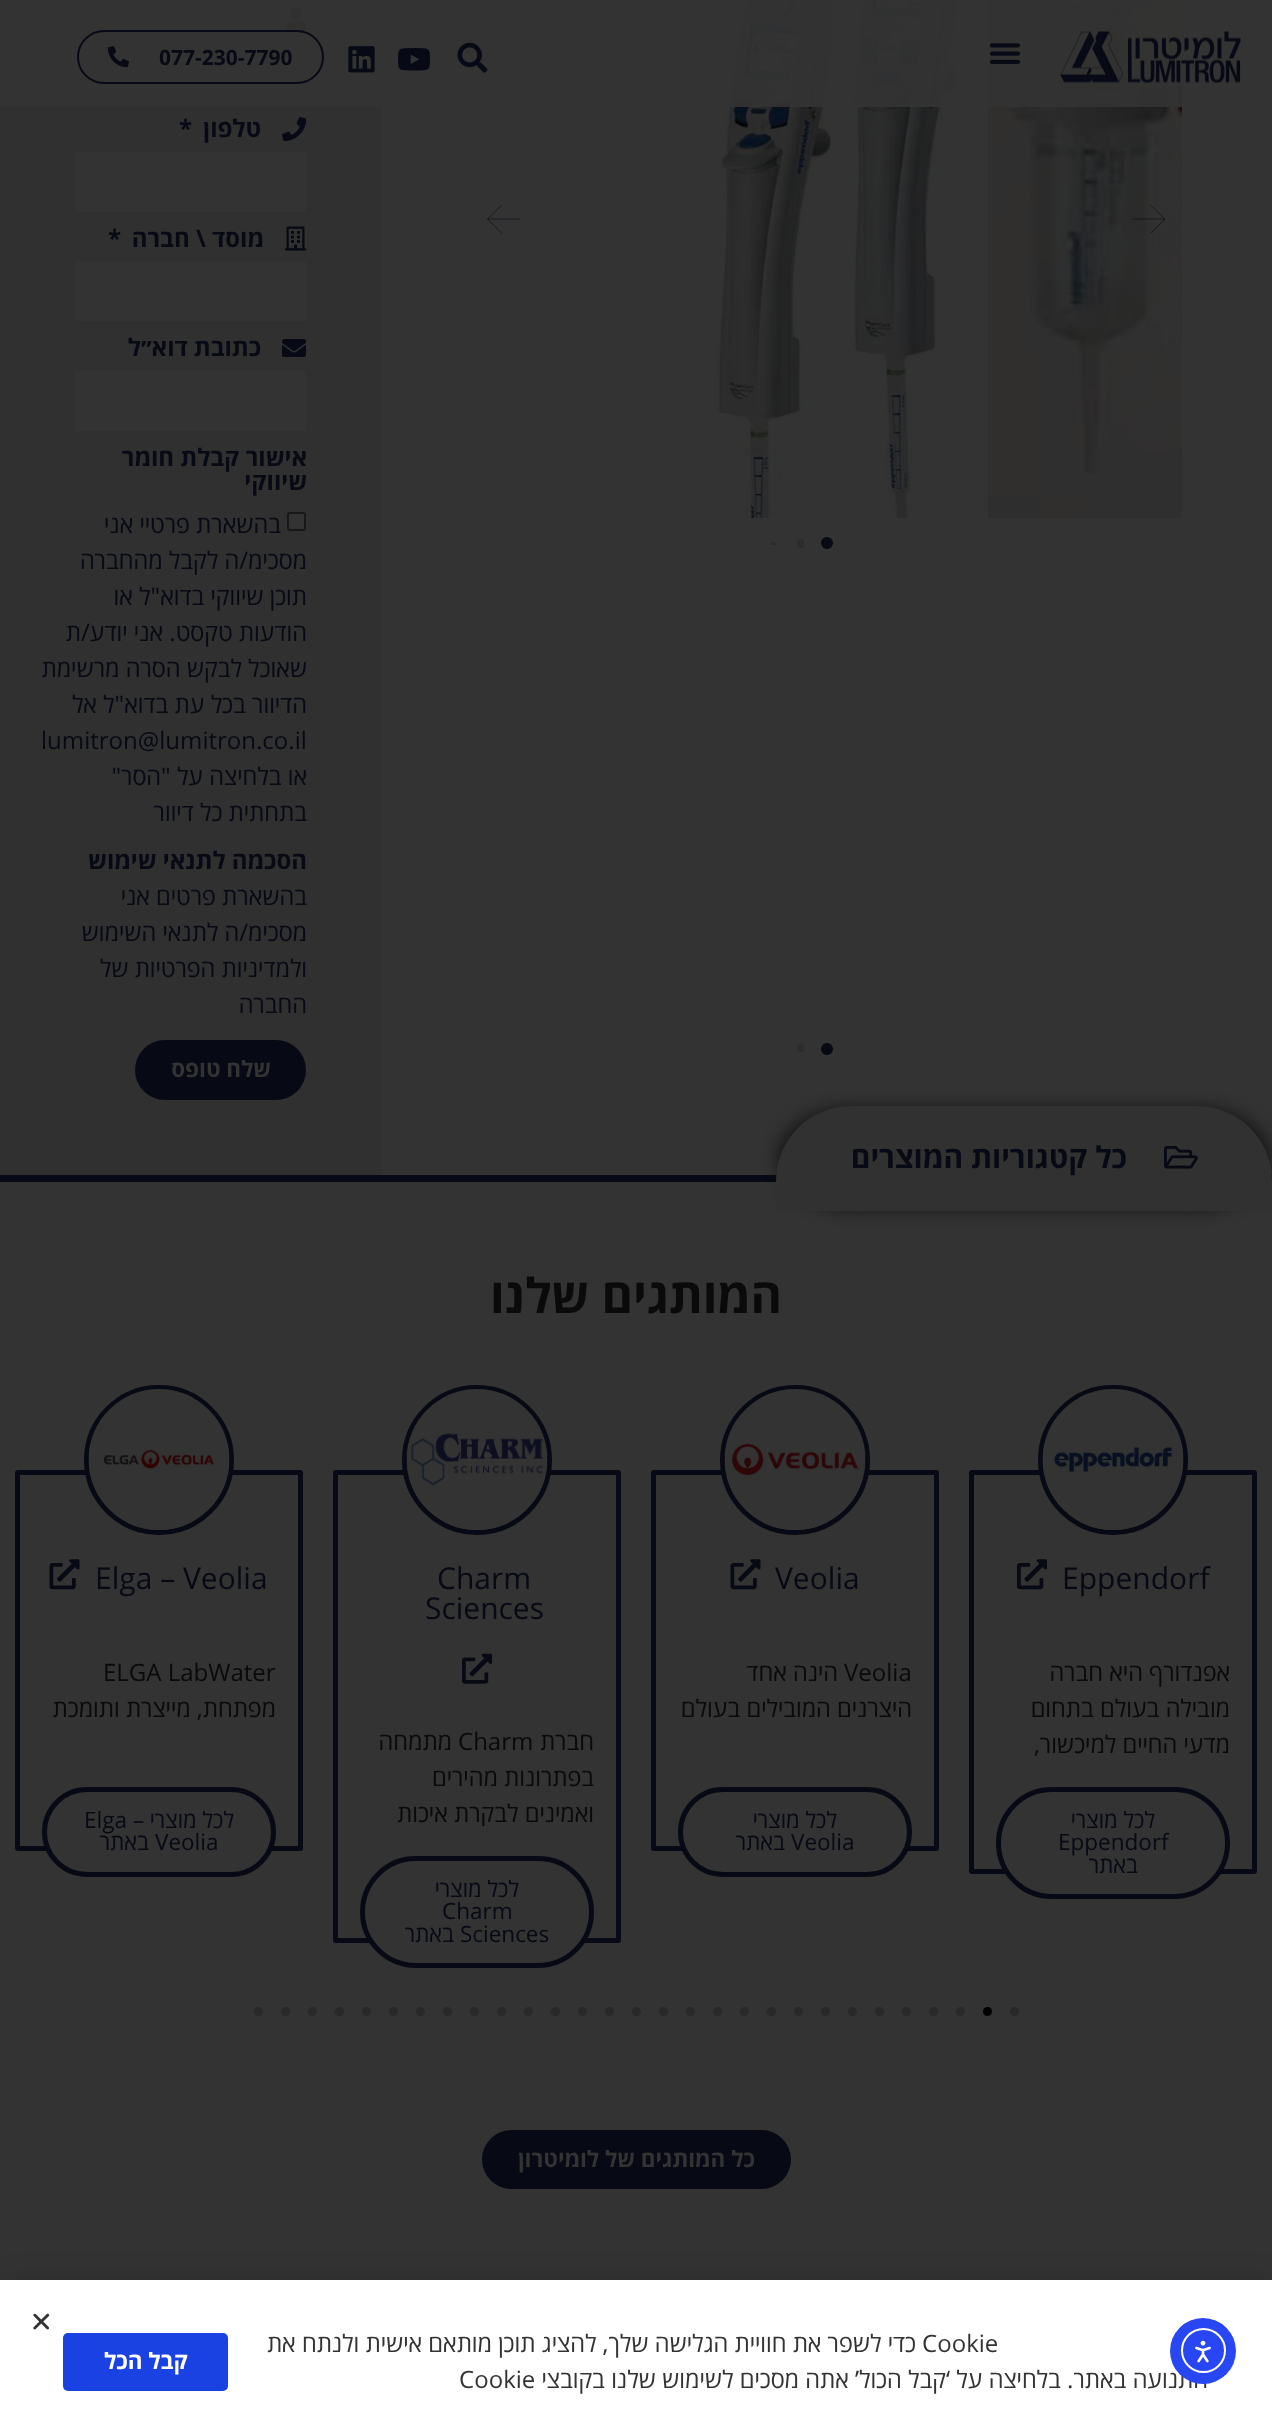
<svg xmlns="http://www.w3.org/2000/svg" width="1272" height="2419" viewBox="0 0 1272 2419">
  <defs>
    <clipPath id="clip1"><path d="M360 1694h234v132H360z"/></clipPath>
  </defs>
  <rect width="100%" height="100%" fill="#333"/>
  <image x="988" y="0" width="194" height="518" href="img/7.png"/>
  <image x="716" y="0" width="257" height="518" href="img/8.png"/>
  <path d="M0 0h381v1175H0z" fill="#303030"/>
  <image x="285" y="7" width="21" height="25" href="img/9.png"/>
  <path d="M75 42h231v60H75z" fill="#333"/>
  <path d="M0 0h1182v107H0z" fill="#333333f0"/>
  <image x="1060" y="31" width="181" height="52" href="img/1.png"/>
  <image x="989" y="43" width="32" height="21" href="img/2.png"/>
  <image x="457" y="42" width="31" height="31" href="img/3.png"/>
  <image x="398" y="48" width="32" height="23" href="img/4.png"/>
  <image x="348" y="46" width="27" height="27" href="img/5.png"/>
  <rect x="78" y="31" width="245" height="52" rx="26" fill="#333" stroke="#070a15" stroke-width="2"/>
  <image x="108" y="46" width="21" height="22" href="img/6.png"/>
  <path d="M487.5 219H520M502 233.5L487.5 219L502 205" fill="none" stroke="#070a15" stroke-width="0.6"/>
  <path d="M1165 219H1132.5M1150.5 205L1165 219L1150.5 233.5" fill="none" stroke="#070a15" stroke-width="0.6"/>
  <circle cx="827" cy="543" r="6" fill="#070a15"/>
  <rect x="797" y="539" width="7" height="9" rx="3.5" fill="#2a2b2d"/>
  <rect x="771" y="542" width="5" height="3" rx="1.5" fill="#2a2b2d"/>
  <circle cx="827" cy="1049" r="6" fill="#070a15"/>
  <rect x="797" y="1044" width="7" height="8" rx="3.5" fill="#2a2b2d"/>
  <image x="282" y="117" width="25" height="24" href="img/10.png"/>
  <path d="M75 152h231v60H75z" fill="#333"/>
  <image x="285" y="226" width="21" height="25" href="img/11.png"/>
  <path d="M75 261h231v60H75z" fill="#333"/>
  <image x="282" y="339" width="24" height="18" href="img/12.png"/>
  <path d="M75 371h231v60H75z" fill="#333"/>
  <rect x="288" y="513" width="17" height="17" rx="2" fill="#333" stroke="#181818" stroke-width="2"/>
  <rect x="135" y="1040" width="171" height="60" rx="30" fill="#070a15"/>
  <path d="M0 1175h1272v7H0z" fill="#070a15"/>
  <rect x="776" y="1106" width="496" height="105" rx="75" fill="#00000080" filter="blur(7.5px)"/>
  <path d="M851 1106H1197C1238.5 1106 1272 1139.5 1272 1181V1211H776V1181C776 1139.5 809.5 1106 851 1106Z" fill="#313131"/>
  <image x="1164" y="1146" width="34" height="23" href="img/13.png"/>
  <rect x="971.5" y="1472.5" width="283" height="399" rx="0.5" fill="none" stroke="#070a15" stroke-width="5"/>
  <circle cx="1113" cy="1460" r="72.5" fill="none" stroke="#070a15" stroke-width="5"/>
  <image x="1042" y="1389" width="142" height="141" href="img/14.png"/>
  <image x="1017" y="1559" width="30" height="31" href="img/15.png"/>
  <rect x="998.5" y="1789.5" width="229" height="107" rx="53.5" fill="#333" stroke="#070a15" stroke-width="5"/>
  <rect x="653.5" y="1472.5" width="283" height="376" rx="0.5" fill="none" stroke="#070a15" stroke-width="5"/>
  <circle cx="795" cy="1460" r="72.5" fill="none" stroke="#070a15" stroke-width="5"/>
  <image x="724" y="1389" width="142" height="141" href="img/16.png"/>
  <image x="730" y="1559" width="31" height="31" href="img/17.png"/>
  <rect x="680.5" y="1789.5" width="229" height="85" rx="42.5" fill="#333" stroke="#070a15" stroke-width="5"/>
  <rect x="335.5" y="1472.5" width="283" height="468" rx="0.5" fill="none" stroke="#070a15" stroke-width="5"/>
  <circle cx="477" cy="1460" r="72.5" fill="none" stroke="#070a15" stroke-width="5"/>
  <image x="406" y="1389" width="142" height="141" href="img/18.png"/>
  <image x="462" y="1653" width="30" height="31" href="img/19.png"/>
  <rect x="362.5" y="1858.5" width="229" height="107" rx="53.5" fill="#333" stroke="#070a15" stroke-width="5"/>
  <rect x="17.5" y="1472.5" width="283" height="376" rx="0.5" fill="none" stroke="#070a15" stroke-width="5"/>
  <circle cx="159" cy="1460" r="72.5" fill="none" stroke="#070a15" stroke-width="5"/>
  <image x="88" y="1389" width="142" height="141" href="img/20.png"/>
  <image x="49" y="1559" width="31" height="31" href="img/17.png"/>
  <rect x="44.5" y="1789.5" width="229" height="85" rx="42.5" fill="#333" stroke="#070a15" stroke-width="5"/>
  <circle cx="1014.5" cy="2011.5" r="4.5" fill="#292929"/>
  <circle cx="987.5" cy="2011.5" r="4.5" fill="#000"/>
  <circle cx="960.5" cy="2011.5" r="4.5" fill="#292929"/>
  <circle cx="933.5" cy="2011.5" r="4.5" fill="#292929"/>
  <circle cx="906.5" cy="2011.5" r="4.5" fill="#292929"/>
  <circle cx="879.5" cy="2011.5" r="4.5" fill="#292929"/>
  <circle cx="852.5" cy="2011.5" r="4.5" fill="#292929"/>
  <circle cx="825.5" cy="2011.5" r="4.5" fill="#292929"/>
  <circle cx="798.5" cy="2011.5" r="4.5" fill="#292929"/>
  <circle cx="771.5" cy="2011.5" r="4.5" fill="#292929"/>
  <circle cx="744.5" cy="2011.5" r="4.5" fill="#292929"/>
  <circle cx="717.5" cy="2011.5" r="4.5" fill="#292929"/>
  <circle cx="690.5" cy="2011.5" r="4.5" fill="#292929"/>
  <circle cx="663.5" cy="2011.5" r="4.5" fill="#292929"/>
  <circle cx="636.5" cy="2011.5" r="4.5" fill="#292929"/>
  <circle cx="609.5" cy="2011.5" r="4.5" fill="#292929"/>
  <circle cx="582.5" cy="2011.5" r="4.5" fill="#292929"/>
  <circle cx="555.5" cy="2011.5" r="4.5" fill="#292929"/>
  <circle cx="528.5" cy="2011.5" r="4.5" fill="#292929"/>
  <circle cx="501.5" cy="2011.5" r="4.5" fill="#292929"/>
  <circle cx="474.5" cy="2011.5" r="4.5" fill="#292929"/>
  <circle cx="447.5" cy="2011.5" r="4.5" fill="#292929"/>
  <circle cx="420.5" cy="2011.5" r="4.5" fill="#292929"/>
  <circle cx="393.5" cy="2011.5" r="4.5" fill="#292929"/>
  <circle cx="366.5" cy="2011.5" r="4.5" fill="#292929"/>
  <circle cx="339.5" cy="2011.5" r="4.5" fill="#292929"/>
  <circle cx="312.5" cy="2011.5" r="4.5" fill="#292929"/>
  <circle cx="285.5" cy="2011.5" r="4.5" fill="#292929"/>
  <circle cx="258.5" cy="2011.5" r="4.5" fill="#292929"/>
  <rect x="482" y="2130" width="309" height="59" rx="29.5" fill="#070a15"/>
  <path d="M-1 2288h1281v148H-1z" fill="#00000033" filter="blur(17px)"/>
  <path d="M0 2280h1272v139H0z" fill="#fff"/>
  <image x="33" y="2313" width="17" height="17" href="img/22.png"/>
  <rect x="63" y="2333" width="165" height="58" rx="5" fill="#1a41e2"/>
  <text x="159" y="65" font-family="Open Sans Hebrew" font-size="21" font-weight="bold" fill="#070a15">077-230-7790</text>
  <text x="261" y="137" font-family="Open Sans Hebrew" font-size="24" font-weight="bold" direction="rtl" fill="#070a15">טלפון</text>
  <text x="179" y="137" font-family="Open Sans Hebrew" font-size="24" font-weight="bold" fill="#070a15">*</text>
  <text x="264" y="247" font-family="Open Sans Hebrew" font-size="24" font-weight="bold" direction="rtl" fill="#070a15">מוסד \ חברה</text>
  <text x="108" y="247" font-family="Open Sans Hebrew" font-size="24" font-weight="bold" fill="#070a15">*</text>
  <g font-family="Open Sans Hebrew" font-size="24" font-weight="bold" direction="rtl" fill="#070a15">
    <text x="261" y="356">כתובת דוא״ל</text>
    <text x="307" y="466">אישור קבלת חומר</text>
    <text x="307" y="490">שיווקי</text>
  </g>
  <g font-family="Open Sans Hebrew" font-size="24" direction="rtl" fill="#070a15">
    <text x="281" y="533">בהשארת פרטיי אני</text>
    <text x="307" y="569">מסכימ/ה לקבל מהחברה</text>
    <text x="307" y="605">תוכן שיווקי בדוא"ל או</text>
    <text x="307" y="641">הודעות טקסט. אני יודע/ת</text>
    <text x="307" y="677">שאוכל לבקש הסרה מרשימת</text>
    <text x="307" y="713">הדיוור בכל עת בדוא"ל אל</text>
  </g>
  <text x="41" y="749" font-family="Open Sans Hebrew" font-size="24" fill="#070a15">lumitron@lumitron.co.il</text>
  <g font-family="Open Sans Hebrew" font-size="24" direction="rtl" fill="#070a15">
    <text x="307" y="785">או בלחיצה על "הסר"</text>
    <text x="307" y="821">בתחתית כל דיוור</text>
  </g>
  <text x="307" y="869" font-family="Open Sans Hebrew" font-size="24" font-weight="bold" direction="rtl" fill="#070a15">הסכמה לתנאי שימוש</text>
  <g font-family="Open Sans Hebrew" font-size="24" direction="rtl" fill="#070a15">
    <text x="307" y="905">בהשארת פרטים אני</text>
    <text x="307" y="941">מסכימ/ה לתנאי השימוש</text>
    <text x="307" y="977">ולמדיניות הפרטיות של</text>
    <text x="307" y="1013">החברה</text>
  </g>
  <text x="271" y="1077" font-family="Open Sans Hebrew" font-size="22.5" font-weight="bold" direction="rtl" fill="#333">שלח טופס</text>
  <text x="1127" y="1168" font-family="Open Sans Hebrew" font-size="30" font-weight="bold" direction="rtl" fill="#070a15">כל קטגוריות המוצרים</text>
  <text x="782" y="1313" font-family="Open Sans Hebrew" font-size="48" font-weight="bold" direction="rtl" fill="#0a0a0a">המותגים שלנו</text>
  <text x="1062" y="1589" font-family="Open Sans Hebrew" font-size="30" fill="#070a15">Eppendorf</text>
  <g font-family="Open Sans Hebrew" font-size="24" direction="rtl" fill="#0a0a0a">
    <text x="1230" y="1681">אפנדורף היא חברה</text>
    <text x="1230" y="1717">מובילה בעולם בתחום</text>
    <text x="1230" y="1753">מדעי החיים למיכשור,</text>
  </g>
  <text x="1155" y="1828" font-family="Open Sans Hebrew" font-size="22.5" direction="rtl" fill="#070a15">לכל מוצרי</text>
  <text x="1058" y="1850" font-family="Open Sans Hebrew" font-size="22.5" fill="#070a15">Eppendorf</text>
  <text x="1138" y="1873" font-family="Open Sans Hebrew" font-size="22.5" direction="rtl" fill="#070a15">באתר</text>
  <text x="775" y="1589" font-family="Open Sans Hebrew" font-size="30" fill="#070a15">Veolia</text>
  <text x="844" y="1681" font-family="Open Sans Hebrew" font-size="24" fill="#0a0a0a">Veolia</text>
  <g font-family="Open Sans Hebrew" font-size="24" direction="rtl" fill="#0a0a0a">
    <text x="838" y="1681">הינה אחד</text>
    <text x="912" y="1717">היצרנים המובילים בעולם</text>
  </g>
  <text x="837" y="1828" font-family="Open Sans Hebrew" font-size="22.5" direction="rtl" fill="#070a15">לכל מוצרי</text>
  <text x="791" y="1850" font-family="Open Sans Hebrew" font-size="22.5" fill="#070a15">Veolia</text>
  <text x="785" y="1850" font-family="Open Sans Hebrew" font-size="22.5" direction="rtl" fill="#070a15">באתר</text>
  <g font-family="Open Sans Hebrew" font-size="30" fill="#070a15">
    <text x="437" y="1589">Charm</text>
    <text x="425" y="1619">Sciences</text>
  </g>
  <text x="594" y="1750" font-family="Open Sans Hebrew" font-size="24" direction="rtl" fill="#0a0a0a">חברת</text>
  <text x="458" y="1750" font-family="Open Sans Hebrew" font-size="24" fill="#0a0a0a">Charm</text>
  <g font-family="Open Sans Hebrew" font-size="24" direction="rtl" fill="#0a0a0a">
    <text x="452" y="1750">מתמחה</text>
    <text x="594" y="1786">בפתרונות מהירים</text>
  </g>
  <g clip-path="url(#clip1)">
    <text x="594" y="1822" font-family="Open Sans Hebrew" font-size="24" direction="rtl" fill="#0a0a0a">ואמינים לבקרת איכות</text>
  </g>
  <text x="519" y="1897" font-family="Open Sans Hebrew" font-size="22.5" direction="rtl" fill="#070a15">לכל מוצרי</text>
  <g font-family="Open Sans Hebrew" font-size="22.5" fill="#070a15">
    <text x="442" y="1919">Charm</text>
    <text x="460" y="1942">Sciences</text>
  </g>
  <text x="454" y="1942" font-family="Open Sans Hebrew" font-size="22.5" direction="rtl" fill="#070a15">באתר</text>
  <text x="95" y="1589" font-family="Open Sans Hebrew" font-size="30" fill="#070a15">Elga – Veolia</text>
  <text x="103" y="1681" font-family="Open Sans Hebrew" font-size="24" fill="#0a0a0a">ELGA LabWater</text>
  <text x="276" y="1717" font-family="Open Sans Hebrew" font-size="24" direction="rtl" fill="#0a0a0a">מפתחת, מייצרת ותומכת</text>
  <text x="234" y="1828" font-family="Open Sans Hebrew" font-size="22.5" direction="rtl" fill="#070a15">לכל מוצרי</text>
  <g font-family="Open Sans Hebrew" font-size="22.5" fill="#070a15">
    <text x="84" y="1828">Elga –</text>
    <text x="155" y="1850">Veolia</text>
  </g>
  <text x="149" y="1850" font-family="Open Sans Hebrew" font-size="22.5" direction="rtl" fill="#070a15">באתר</text>
  <text x="755" y="2167" font-family="Open Sans Hebrew" font-size="22.5" font-weight="bold" direction="rtl" fill="#333">כל המותגים של לומיטרון</text>
  <text x="922" y="2352" font-family="Open Sans Hebrew" font-size="24" fill="#333">Cookie</text>
  <g font-family="Open Sans Hebrew" font-size="24" direction="rtl" fill="#333">
    <text x="916" y="2352">כדי לשפר את חוויית הגלישה שלך, להציג תוכן מותאם אישית ולנתח את</text>
    <text x="1208" y="2388">התנועה באתר. בלחיצה על ‘קבל הכול’ אתה מסכים לשימוש שלנו בקובצי</text>
  </g>
  <circle cx="1203" cy="2351" r="33" fill="#2847f3"/>
  <circle cx="1203.5" cy="2350.5" r="21.5" fill="none" stroke="#fff" stroke-width="2"/>
  <image x="1195" y="2340" width="16" height="23" href="img/21.png"/>
  <text x="459" y="2388" font-family="Open Sans Hebrew" font-size="24" fill="#333">Cookie</text>
  <text x="188" y="2369" font-family="Open Sans Hebrew" font-size="22.5" font-weight="bold" direction="rtl" fill="#fff">קבל הכל</text>
</svg>
